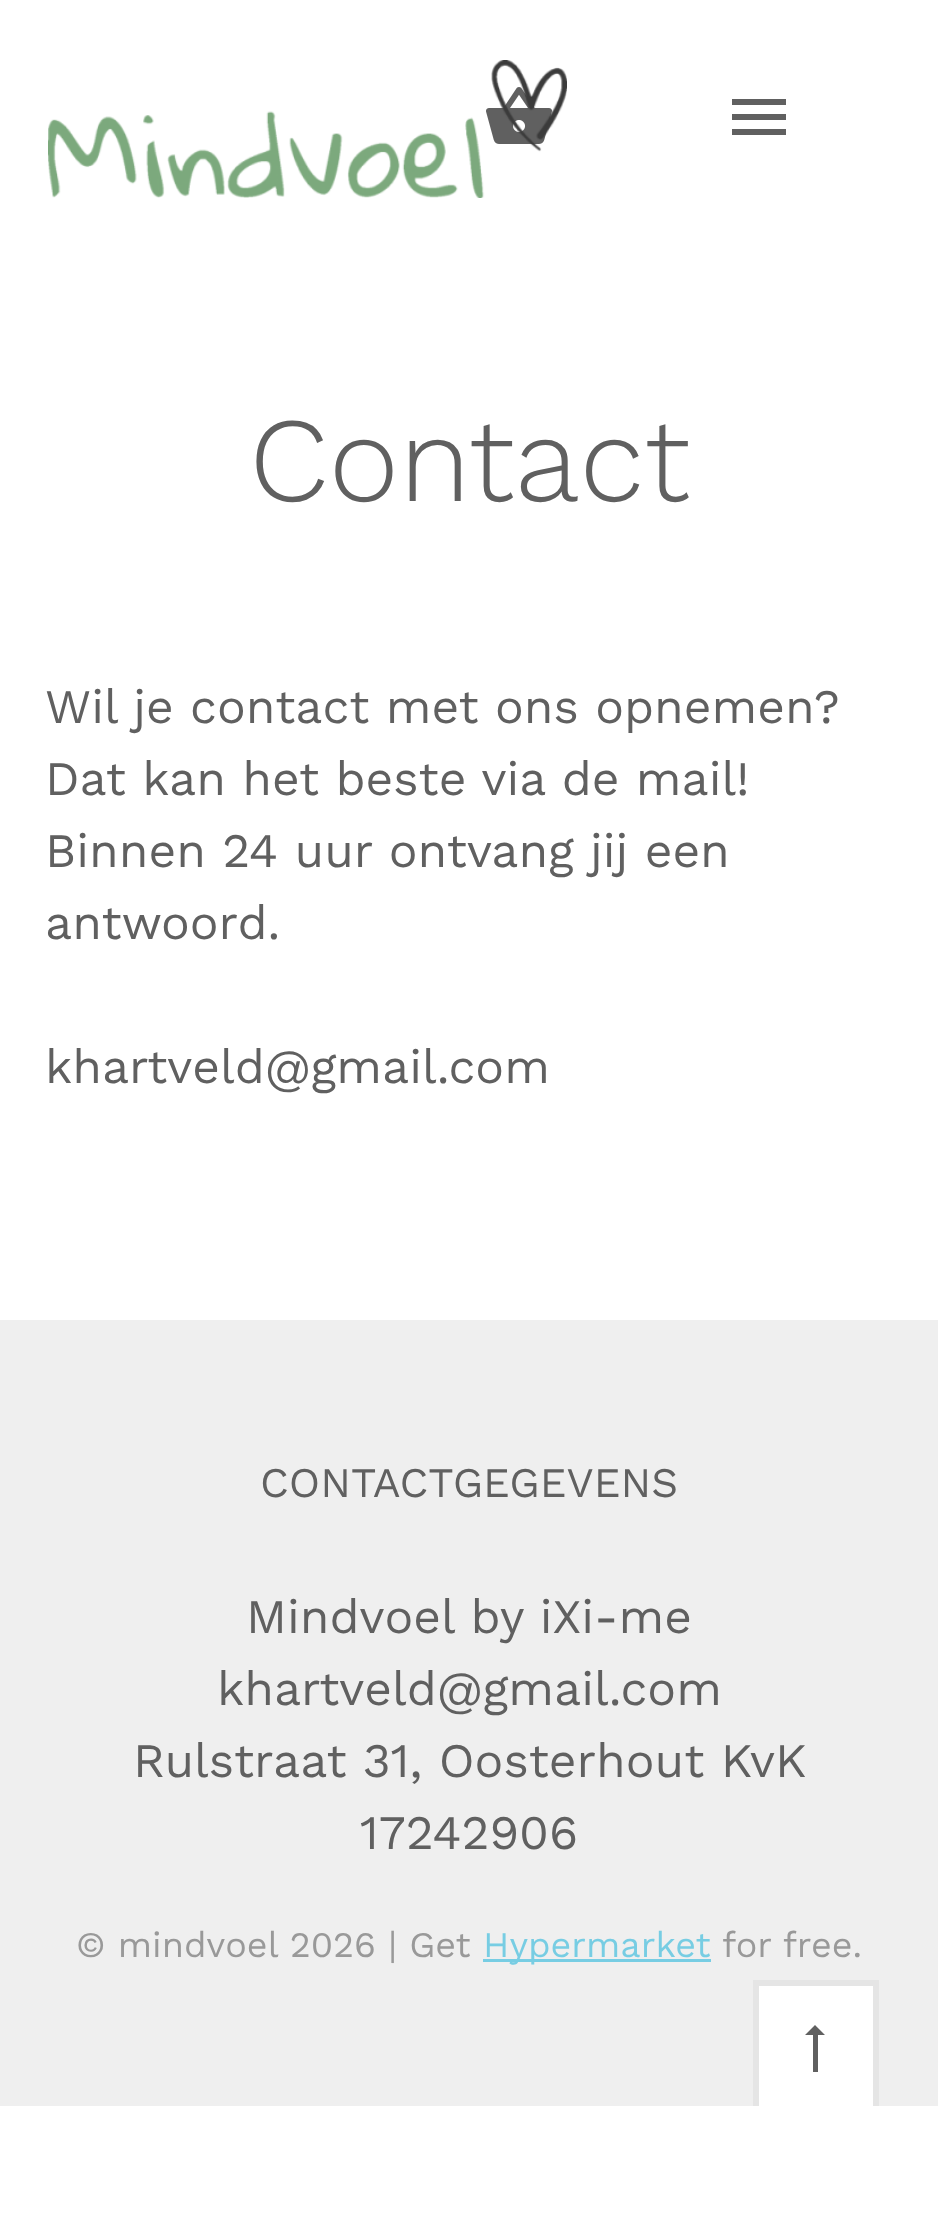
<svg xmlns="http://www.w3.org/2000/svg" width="938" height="2235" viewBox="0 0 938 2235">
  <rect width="100%" height="100%" fill="#fff"/>
  <image x="486" y="87" width="66" height="57" href="img/2.png"/>
  <image x="48" y="60" width="519" height="138" href="img/1.png"/>
  <path d="M732 99H786V105H732ZM732 120V114H786V120ZM732 135V129H786V135Z" fill="#606060"/>
  <path d="M0 1320h938v786H0z" fill="#efefef"/>
  <path d="M483 1959h228v3H483z" fill="#77cde3"/>
  <path d="M759 1986h114v120H759z" fill="#fff"/>
  <path d="M753 1980h126v6H753z" fill="#e5e5e5"/>
  <path d="M873 1980h6v126H873z" fill="#e5e5e5"/>
  <path d="M753 1980h6v126H753z" fill="#e5e5e5"/>
  <path d="M815 2025L825 2035H818V2072H813V2035H805Z" fill="#606060"/>
  <text x="249" y="501" font-family="Work Sans" font-size="120" font-weight="300" fill="#606060">Contact</text>
  <g font-family="Work Sans" font-size="48" fill="#606060">
    <text x="45" y="723">Wil je contact met ons opnemen?</text>
    <text x="45" y="795">Dat kan het beste via de mail!</text>
    <text x="45" y="867">Binnen 24 uur ontvang jij een</text>
    <text x="45" y="939">antwoord.</text>
    <text x="45" y="1083">khartveld@gmail.com</text>
  </g>
  <text x="260" y="1497" font-family="Work Sans" font-size="42" fill="#606060">CONTACTGEGEVENS</text>
  <g font-family="Work Sans" font-size="48" fill="#606060">
    <text x="246" y="1633">Mindvoel by iXi-me</text>
    <text x="217" y="1705">khartveld@gmail.com</text>
    <text x="133" y="1777">Rulstraat 31, Oosterhout KvK</text>
    <text x="360" y="1849">17242906</text>
  </g>
  <text x="76" y="1957" font-family="Work Sans" font-size="36" fill="#999">© mindvoel 2026 | Get</text>
  <text x="483" y="1957" font-family="Work Sans" font-size="36" fill="#77cde3">Hypermarket</text>
  <text x="722" y="1957" font-family="Work Sans" font-size="36" fill="#999">for free.</text>
</svg>
